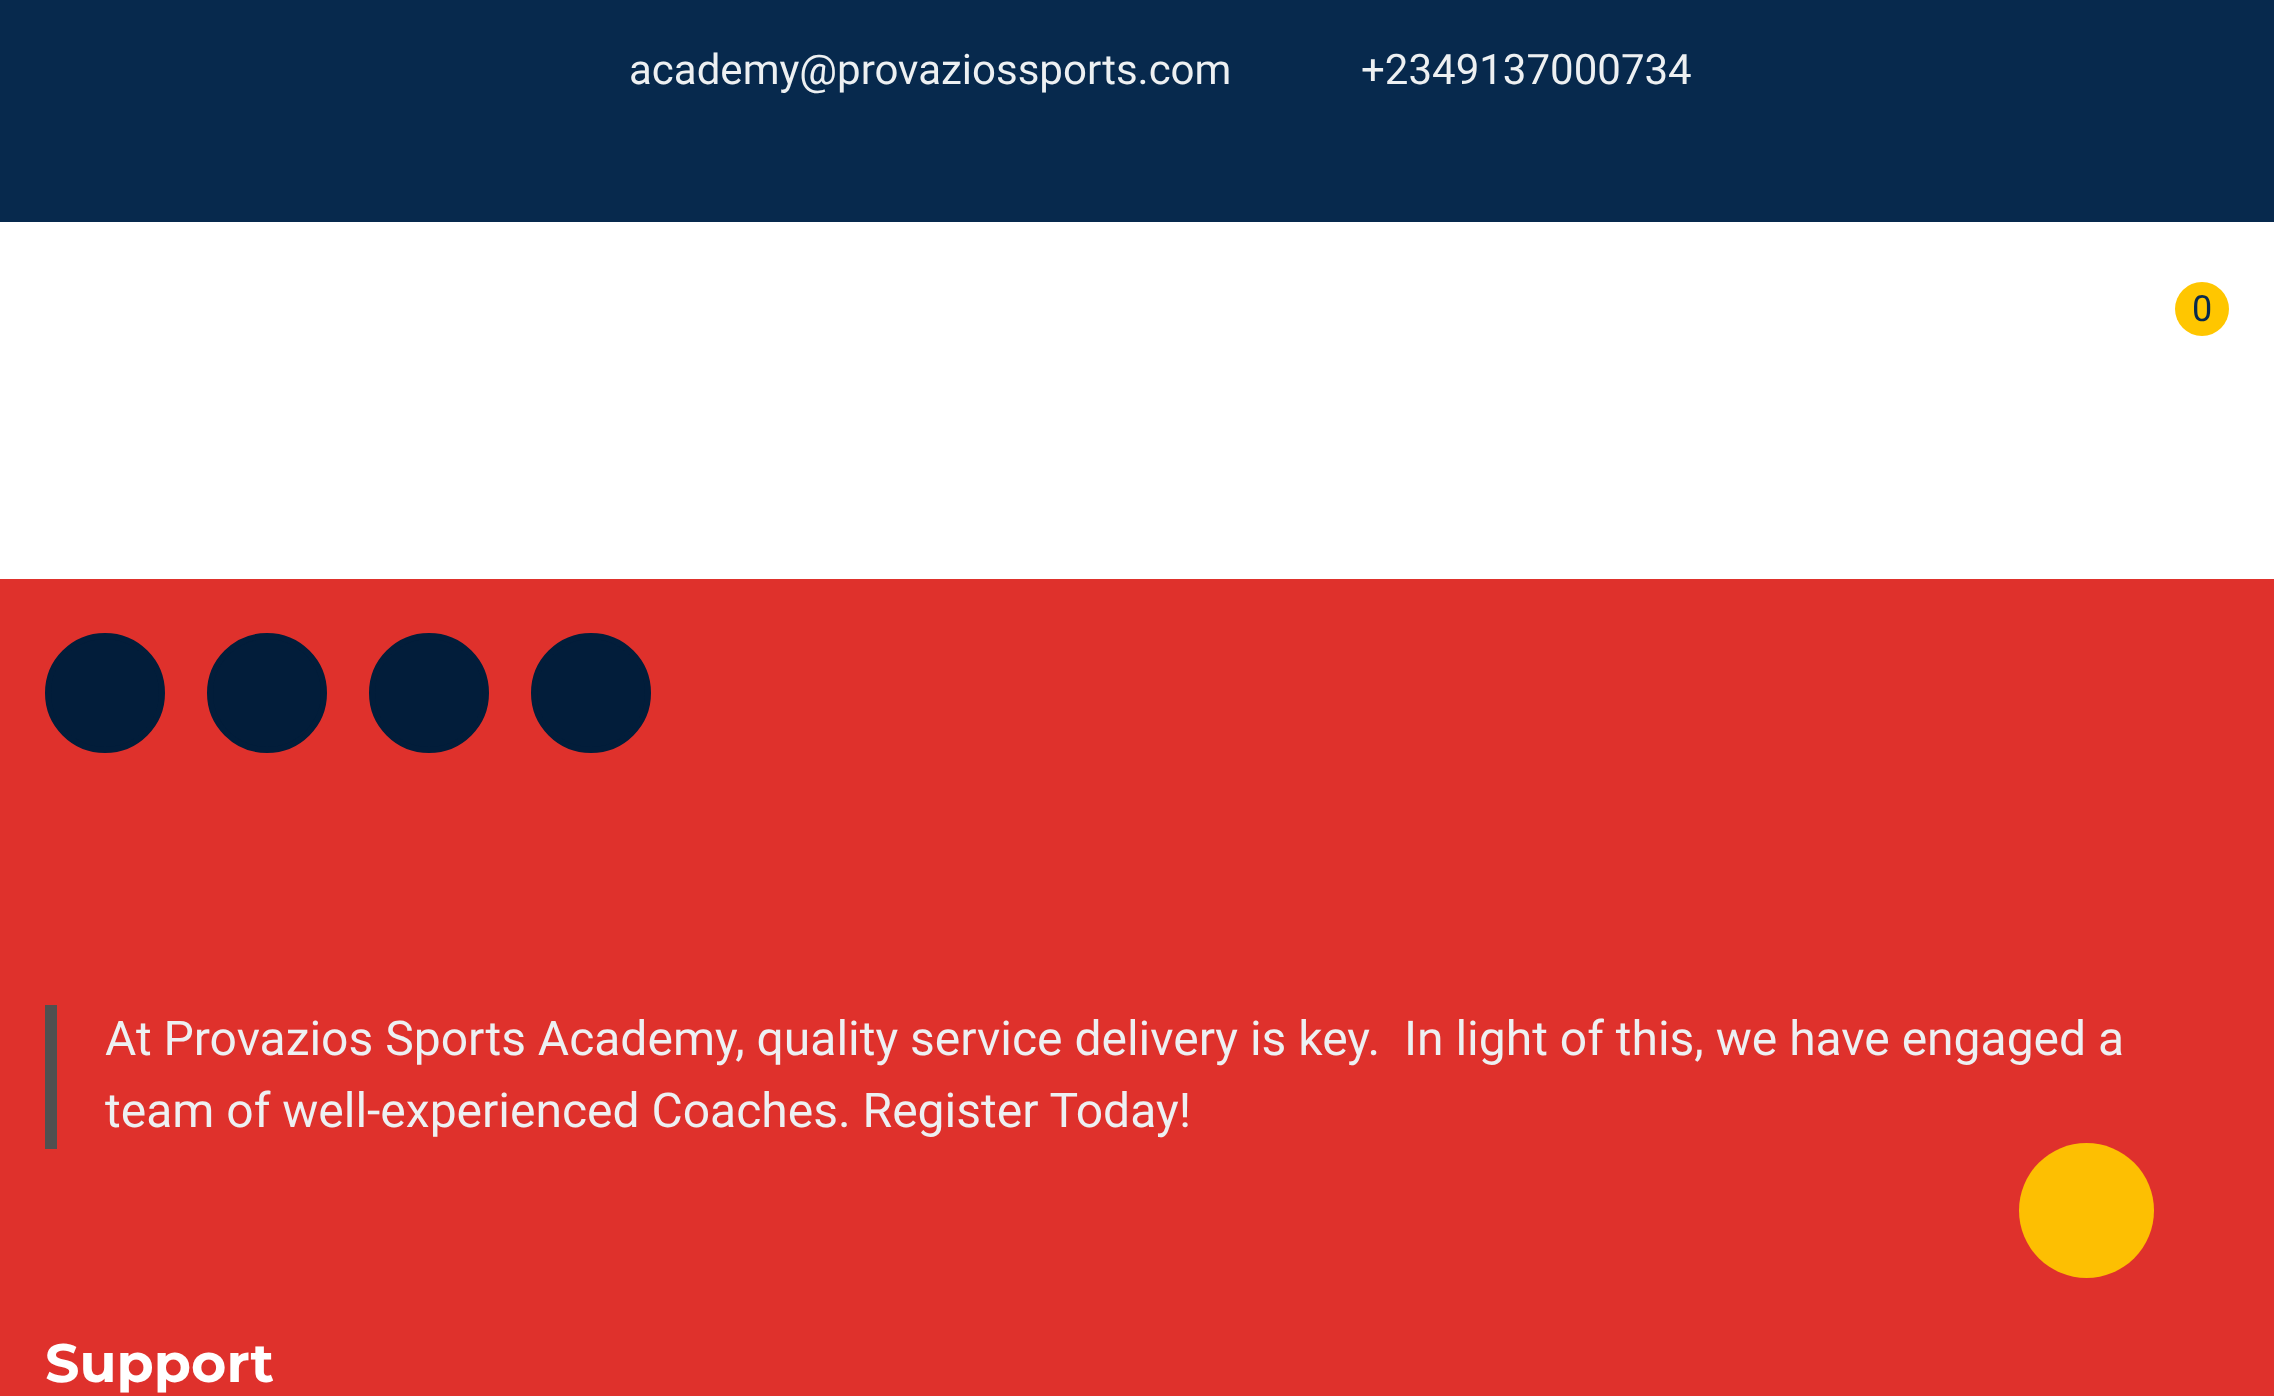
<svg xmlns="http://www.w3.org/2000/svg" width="2274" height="1396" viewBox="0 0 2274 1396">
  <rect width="100%" height="100%" fill="#df312c"/>
  <path d="M0 222h2274v357H0z" fill="#fff"/>
  <path d="M0 0h2274v222H0z" fill="#07294d"/>
  <circle cx="2202" cy="309" r="27" fill="#ffc600"/>
  <circle cx="105" cy="693" r="57" fill="#021d3a" stroke="#021d3a" stroke-width="6"/>
  <circle cx="267" cy="693" r="57" fill="#021d3a" stroke="#021d3a" stroke-width="6"/>
  <circle cx="429" cy="693" r="57" fill="#021d3a" stroke="#021d3a" stroke-width="6"/>
  <circle cx="591" cy="693" r="57" fill="#021d3a" stroke="#021d3a" stroke-width="6"/>
  <path d="M45 1005h12v144H45z" fill="#505050"/>
  <circle cx="2086.5" cy="1210.5" r="67.5" fill="#fdbf02"/>
  <g font-family="Roboto" font-size="42" fill="#edf0f2">
    <text x="629" y="84">academy@provaziossports.com</text>
    <text x="1361" y="84">+2349137000734</text>
  </g>
  <text x="2192" y="321" font-family="Roboto" font-size="36" fill="#07294d">0</text>
  <g font-family="Roboto" font-size="48" fill="#edf0f2">
    <text x="105" y="1055" xml:space="preserve">At Provazios Sports Academy, quality service delivery is key.  In light of this, we have engaged a</text>
    <text x="105" y="1127">team of well-experienced Coaches. Register Today!</text>
  </g>
  <text x="45" y="1382" font-family="Montserrat" font-size="54" font-weight="bold" fill="#fff">Support</text>
</svg>
